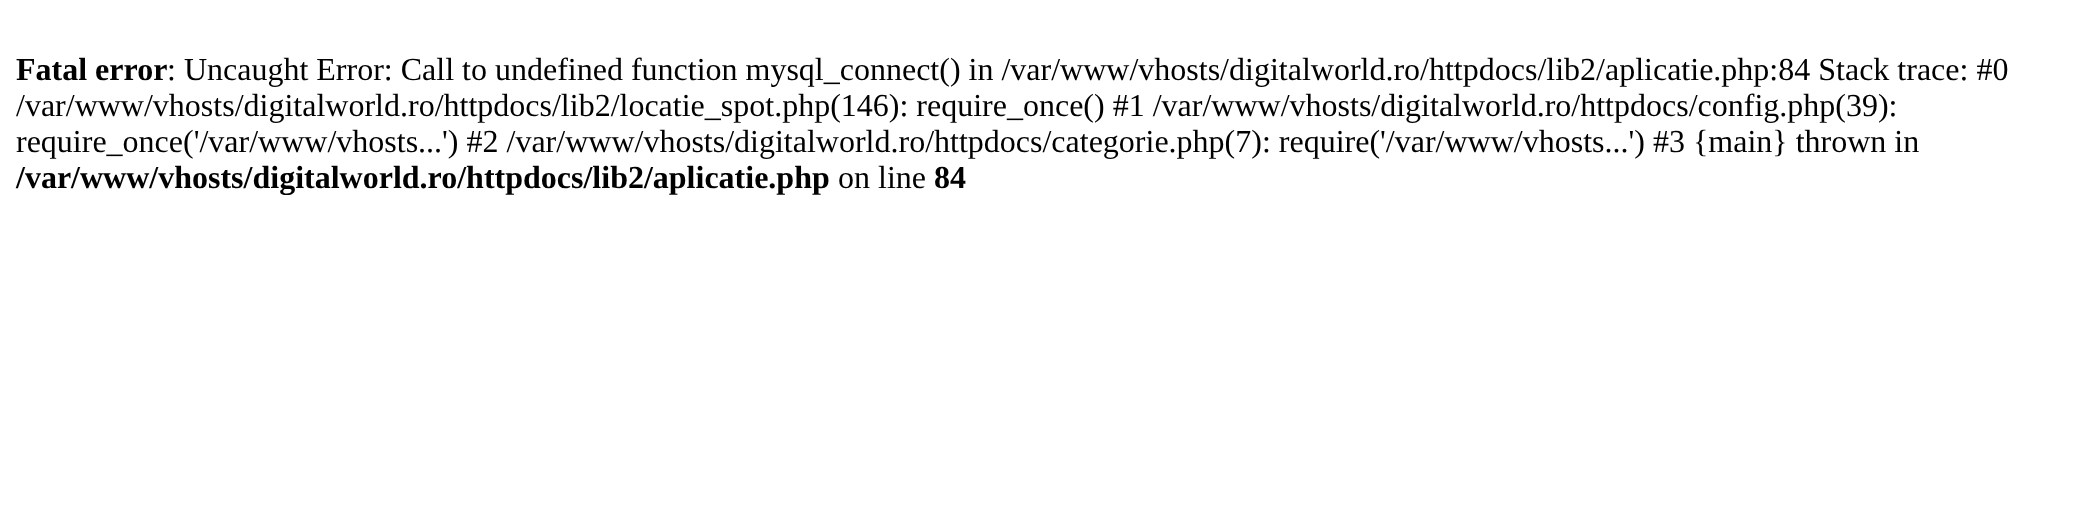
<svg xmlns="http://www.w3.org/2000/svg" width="2077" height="531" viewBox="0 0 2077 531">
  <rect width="100%" height="100%" fill="#fff"/>
  <text x="16" y="80" font-family="Liberation Serif" font-size="32" font-weight="bold" fill="#000">Fatal error</text>
  <g font-family="Liberation Serif" font-size="32" fill="#000">
    <text x="167" y="80">: Uncaught Error: Call to undefined function mysql_connect() in /var/www/vhosts/digitalworld.ro/httpdocs/lib2/aplicatie.php:84 Stack trace: #0</text>
    <text x="16" y="116">/var/www/vhosts/digitalworld.ro/httpdocs/lib2/locatie_spot.php(146): require_once() #1 /var/www/vhosts/digitalworld.ro/httpdocs/config.php(39):</text>
    <text x="16" y="152">require_once('/var/www/vhosts...') #2 /var/www/vhosts/digitalworld.ro/httpdocs/categorie.php(7): require('/var/www/vhosts...') #3 {main} thrown in</text>
  </g>
  <text x="16" y="188" font-family="Liberation Serif" font-size="32" font-weight="bold" fill="#000">/var/www/vhosts/digitalworld.ro/httpdocs/lib2/aplicatie.php</text>
  <text x="838" y="188" font-family="Liberation Serif" font-size="32" fill="#000">on line</text>
  <text x="934" y="188" font-family="Liberation Serif" font-size="32" font-weight="bold" fill="#000">84</text>
</svg>
